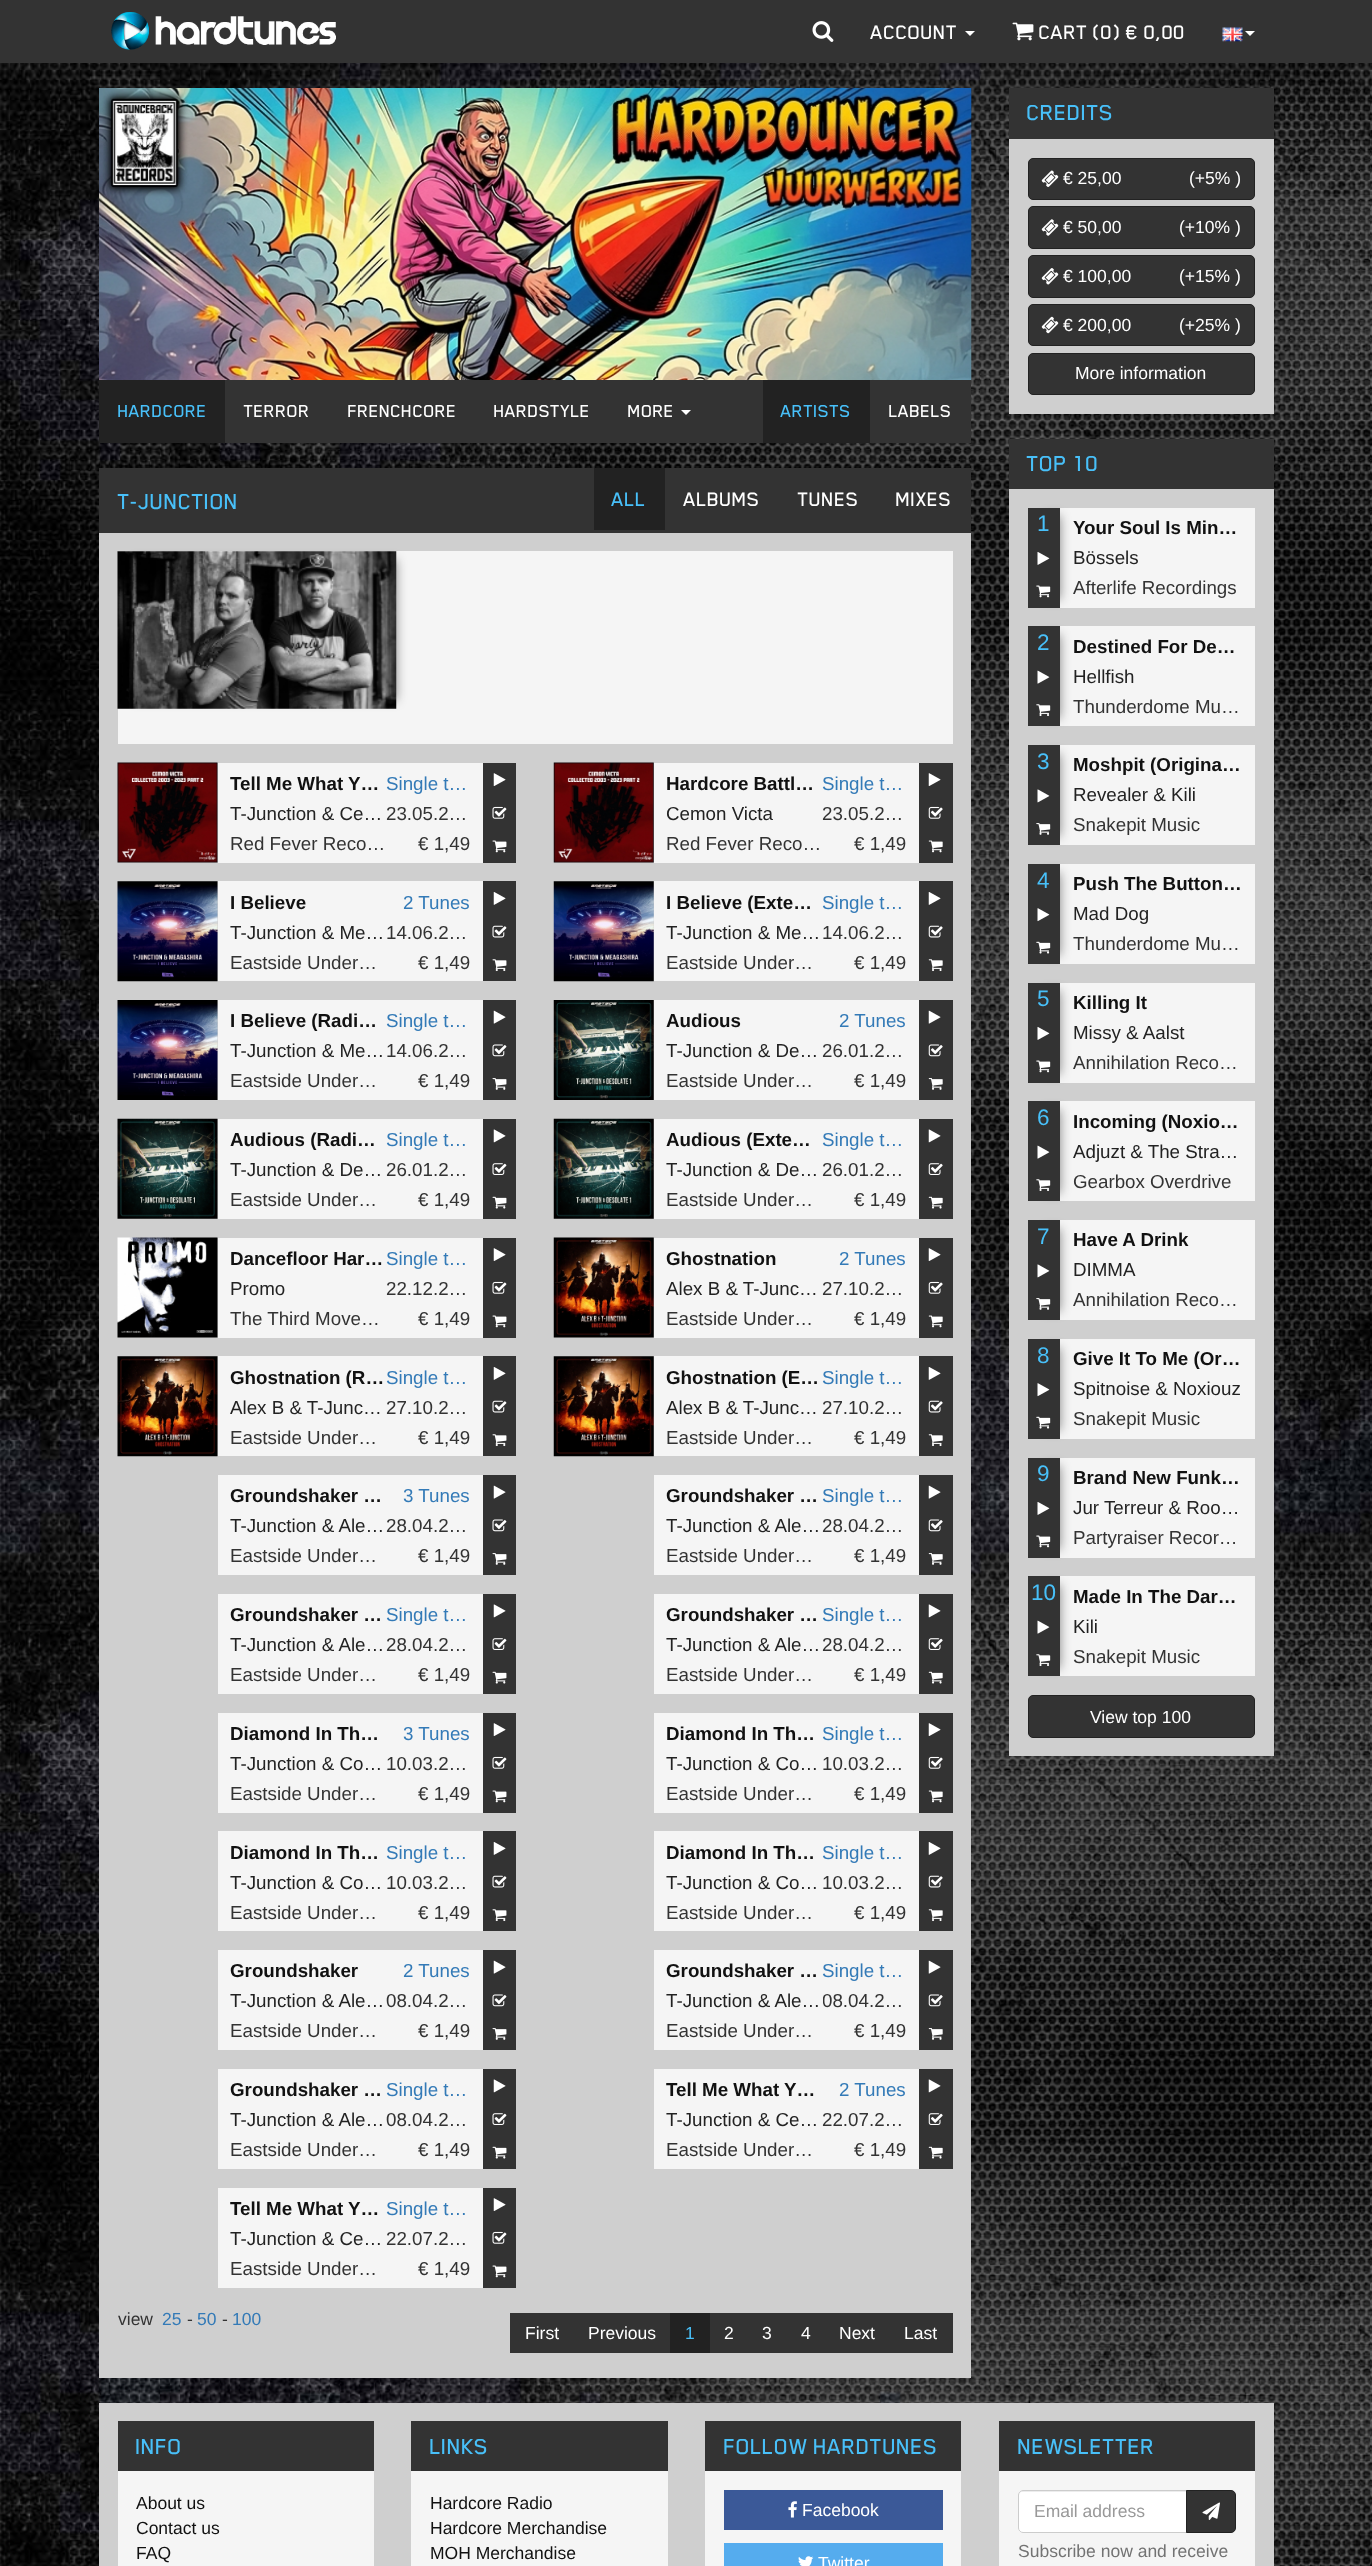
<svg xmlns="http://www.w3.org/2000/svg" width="1372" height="2566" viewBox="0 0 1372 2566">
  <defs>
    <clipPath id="clip1"><path d="M823 1986h83v30H823z"/></clipPath>
  </defs>
  <rect width="100%" height="100%" fill="#fff"/>
  <image x="0" y="63" width="1372" height="2503" href="img/1.png"/>
  <path d="M0 0h1372v63H0z" fill="#333"/>
  <image x="111" y="12" width="225" height="38" href="img/2.png"/>
  <image x="812" y="21" width="22" height="21" href="img/3.png"/>
  <path d="M965 31H975L970 36Z" fill="#fff"/>
  <image x="1012" y="22" width="22" height="19" href="img/4.png"/>
  <image x="1222" y="27" width="21" height="15" href="img/5.png"/>
  <path d="M1245 31H1255L1250 36Z" fill="#fff"/>
  <image x="99" y="88" width="873" height="292" href="img/6.png"/>
  <path d="M225 380h746v63H225z" fill="#333"/>
  <path d="M99 380h126v63H99z" fill="#222"/>
  <path d="M681 410H691L686 415Z" fill="#fff"/>
  <path d="M763 380h107v63H763z" fill="#222"/>
  <path d="M99 468h872v65H99z" fill="#333"/>
  <path d="M594 468h71v62H594z" fill="#222"/>
  <path d="M99 533h872v1845H99z" fill="#cfcfcf"/>
  <path d="M118 551h835v193H118z" fill="#f5f5f5"/>
  <path d="M135 560h261v140H135z" fill="#11111180" filter="blur(5.5px)"/>
  <image x="117" y="551" width="280" height="158" href="img/7.png"/>
  <image x="117" y="762" width="101" height="101" href="img/8.png"/>
  <path d="M218 763h265v100H218z" fill="#f5f5f5"/>
  <path d="M483 763h33v100H483z" fill="#333"/>
  <image x="493" y="773" width="13" height="13" href="img/9.png"/>
  <image x="492" y="806" width="15" height="13" href="img/10.png"/>
  <image x="492" y="840" width="15" height="13" href="img/11.png"/>
  <image x="553" y="762" width="101" height="101" href="img/12.png"/>
  <path d="M654 763h265v100H654z" fill="#f5f5f5"/>
  <path d="M919 763h34v100H919z" fill="#333"/>
  <image x="928" y="773" width="13" height="13" href="img/9.png"/>
  <image x="928" y="806" width="15" height="13" href="img/13.png"/>
  <image x="928" y="840" width="15" height="13" href="img/14.png"/>
  <image x="117" y="881" width="101" height="101" href="img/15.png"/>
  <path d="M218 881h265v100H218z" fill="#f5f5f5"/>
  <path d="M483 881h33v100H483z" fill="#333"/>
  <image x="493" y="892" width="13" height="13" href="img/16.png"/>
  <image x="492" y="925" width="15" height="13" href="img/17.png"/>
  <image x="492" y="959" width="15" height="13" href="img/18.png"/>
  <image x="553" y="881" width="101" height="101" href="img/19.png"/>
  <path d="M654 881h265v100H654z" fill="#f5f5f5"/>
  <path d="M919 881h34v100H919z" fill="#333"/>
  <image x="928" y="892" width="13" height="13" href="img/16.png"/>
  <image x="928" y="925" width="15" height="13" href="img/20.png"/>
  <image x="928" y="959" width="15" height="13" href="img/21.png"/>
  <image x="117" y="1000" width="101" height="100" href="img/22.png"/>
  <path d="M218 1000h265v100H218z" fill="#f5f5f5"/>
  <path d="M483 1000h33v100H483z" fill="#333"/>
  <image x="493" y="1010" width="13" height="14" href="img/23.png"/>
  <image x="492" y="1044" width="15" height="13" href="img/24.png"/>
  <image x="492" y="1078" width="15" height="12" href="img/25.png"/>
  <image x="553" y="1000" width="101" height="100" href="img/26.png"/>
  <path d="M654 1000h265v100H654z" fill="#f5f5f5"/>
  <path d="M919 1000h34v100H919z" fill="#333"/>
  <image x="928" y="1010" width="13" height="14" href="img/23.png"/>
  <image x="928" y="1044" width="15" height="13" href="img/27.png"/>
  <image x="928" y="1078" width="15" height="12" href="img/28.png"/>
  <image x="117" y="1118" width="101" height="101" href="img/29.png"/>
  <path d="M218 1119h265v100H218z" fill="#f5f5f5"/>
  <path d="M483 1119h33v100H483z" fill="#333"/>
  <image x="493" y="1129" width="13" height="14" href="img/30.png"/>
  <image x="492" y="1163" width="15" height="12" href="img/31.png"/>
  <image x="492" y="1196" width="15" height="13" href="img/32.png"/>
  <image x="553" y="1118" width="101" height="101" href="img/33.png"/>
  <path d="M654 1119h265v100H654z" fill="#f5f5f5"/>
  <path d="M919 1119h34v100H919z" fill="#333"/>
  <image x="928" y="1129" width="13" height="14" href="img/30.png"/>
  <image x="928" y="1163" width="15" height="12" href="img/34.png"/>
  <image x="928" y="1196" width="15" height="13" href="img/35.png"/>
  <image x="117" y="1237" width="101" height="101" href="img/36.png"/>
  <path d="M218 1238h265v100H218z" fill="#f5f5f5"/>
  <path d="M483 1238h33v100H483z" fill="#333"/>
  <image x="493" y="1248" width="13" height="13" href="img/9.png"/>
  <image x="492" y="1281" width="15" height="13" href="img/10.png"/>
  <image x="492" y="1315" width="15" height="13" href="img/11.png"/>
  <image x="553" y="1237" width="101" height="101" href="img/37.png"/>
  <path d="M654 1238h265v100H654z" fill="#f5f5f5"/>
  <path d="M919 1238h34v100H919z" fill="#333"/>
  <image x="928" y="1248" width="13" height="13" href="img/9.png"/>
  <image x="928" y="1281" width="15" height="13" href="img/13.png"/>
  <image x="928" y="1315" width="15" height="13" href="img/14.png"/>
  <image x="117" y="1356" width="101" height="101" href="img/38.png"/>
  <path d="M218 1356h265v100H218z" fill="#f5f5f5"/>
  <path d="M483 1356h33v100H483z" fill="#333"/>
  <image x="493" y="1367" width="13" height="13" href="img/16.png"/>
  <image x="492" y="1400" width="15" height="13" href="img/17.png"/>
  <image x="492" y="1434" width="15" height="13" href="img/18.png"/>
  <image x="553" y="1356" width="101" height="101" href="img/39.png"/>
  <path d="M654 1356h265v100H654z" fill="#f5f5f5"/>
  <path d="M919 1356h34v100H919z" fill="#333"/>
  <image x="928" y="1367" width="13" height="13" href="img/16.png"/>
  <image x="928" y="1400" width="15" height="13" href="img/20.png"/>
  <image x="928" y="1434" width="15" height="13" href="img/21.png"/>
  <path d="M218 1475h265v100H218z" fill="#f5f5f5"/>
  <path d="M483 1475h33v100H483z" fill="#333"/>
  <image x="493" y="1485" width="13" height="14" href="img/23.png"/>
  <image x="492" y="1519" width="15" height="13" href="img/24.png"/>
  <image x="492" y="1553" width="15" height="12" href="img/25.png"/>
  <path d="M654 1475h265v100H654z" fill="#f5f5f5"/>
  <path d="M919 1475h34v100H919z" fill="#333"/>
  <image x="928" y="1485" width="13" height="14" href="img/23.png"/>
  <image x="928" y="1519" width="15" height="13" href="img/27.png"/>
  <image x="928" y="1553" width="15" height="12" href="img/28.png"/>
  <path d="M218 1594h265v100H218z" fill="#f5f5f5"/>
  <path d="M483 1594h33v100H483z" fill="#333"/>
  <image x="493" y="1604" width="13" height="14" href="img/30.png"/>
  <image x="492" y="1638" width="15" height="12" href="img/31.png"/>
  <image x="492" y="1671" width="15" height="13" href="img/32.png"/>
  <path d="M654 1594h265v100H654z" fill="#f5f5f5"/>
  <path d="M919 1594h34v100H919z" fill="#333"/>
  <image x="928" y="1604" width="13" height="14" href="img/30.png"/>
  <image x="928" y="1638" width="15" height="12" href="img/34.png"/>
  <image x="928" y="1671" width="15" height="13" href="img/35.png"/>
  <path d="M218 1713h265v100H218z" fill="#f5f5f5"/>
  <path d="M483 1713h33v100H483z" fill="#333"/>
  <image x="493" y="1723" width="13" height="13" href="img/9.png"/>
  <image x="492" y="1756" width="15" height="13" href="img/10.png"/>
  <image x="492" y="1790" width="15" height="13" href="img/11.png"/>
  <path d="M654 1713h265v100H654z" fill="#f5f5f5"/>
  <path d="M919 1713h34v100H919z" fill="#333"/>
  <image x="928" y="1723" width="13" height="13" href="img/9.png"/>
  <image x="928" y="1756" width="15" height="13" href="img/13.png"/>
  <image x="928" y="1790" width="15" height="13" href="img/14.png"/>
  <path d="M218 1831h265v100H218z" fill="#f5f5f5"/>
  <path d="M483 1831h33v100H483z" fill="#333"/>
  <image x="493" y="1842" width="13" height="13" href="img/16.png"/>
  <image x="492" y="1875" width="15" height="13" href="img/17.png"/>
  <image x="492" y="1909" width="15" height="13" href="img/18.png"/>
  <path d="M654 1831h265v100H654z" fill="#f5f5f5"/>
  <path d="M919 1831h34v100H919z" fill="#333"/>
  <image x="928" y="1842" width="13" height="13" href="img/16.png"/>
  <image x="928" y="1875" width="15" height="13" href="img/20.png"/>
  <image x="928" y="1909" width="15" height="13" href="img/21.png"/>
  <path d="M218 1950h265v100H218z" fill="#f5f5f5"/>
  <path d="M483 1950h33v100H483z" fill="#333"/>
  <image x="493" y="1960" width="13" height="14" href="img/23.png"/>
  <image x="492" y="1994" width="15" height="13" href="img/24.png"/>
  <image x="492" y="2028" width="15" height="12" href="img/25.png"/>
  <path d="M654 1950h265v100H654z" fill="#f5f5f5"/>
  <path d="M919 1950h34v100H919z" fill="#333"/>
  <image x="928" y="1960" width="13" height="14" href="img/23.png"/>
  <image x="928" y="1994" width="15" height="13" href="img/27.png"/>
  <image x="928" y="2028" width="15" height="12" href="img/28.png"/>
  <path d="M218 2069h265v100H218z" fill="#f5f5f5"/>
  <path d="M483 2069h33v100H483z" fill="#333"/>
  <image x="493" y="2079" width="13" height="14" href="img/30.png"/>
  <image x="492" y="2113" width="15" height="12" href="img/31.png"/>
  <image x="492" y="2146" width="15" height="13" href="img/32.png"/>
  <path d="M654 2069h265v100H654z" fill="#f5f5f5"/>
  <path d="M919 2069h34v100H919z" fill="#333"/>
  <image x="928" y="2079" width="13" height="14" href="img/30.png"/>
  <image x="928" y="2113" width="15" height="12" href="img/34.png"/>
  <image x="928" y="2146" width="15" height="13" href="img/35.png"/>
  <path d="M218 2188h265v100H218z" fill="#f5f5f5"/>
  <path d="M483 2188h33v100H483z" fill="#333"/>
  <image x="493" y="2198" width="13" height="13" href="img/9.png"/>
  <image x="492" y="2231" width="15" height="13" href="img/10.png"/>
  <image x="492" y="2265" width="15" height="13" href="img/11.png"/>
  <path d="M510 2313h160v40H510z" fill="#333"/>
  <path d="M670 2313h40v40H670z" fill="#222"/>
  <path d="M710 2313h243v40H710z" fill="#333"/>
  <path d="M1009 88h265v51H1009z" fill="#333"/>
  <path d="M1009 139h265v275H1009z" fill="#cfcfcf"/>
  <rect x="1028.5" y="158.5" width="226" height="41" rx="4.5" fill="#333" stroke="#222"/>
  <image x="1041" y="170" width="18" height="17" href="img/40.png"/>
  <rect x="1028.5" y="206.5" width="226" height="42" rx="4.5" fill="#333" stroke="#222"/>
  <image x="1041" y="219" width="18" height="17" href="img/41.png"/>
  <rect x="1028.5" y="255.5" width="226" height="42" rx="4.5" fill="#333" stroke="#222"/>
  <image x="1041" y="268" width="18" height="17" href="img/42.png"/>
  <rect x="1028.5" y="304.5" width="226" height="41" rx="4.5" fill="#333" stroke="#222"/>
  <image x="1041" y="316" width="18" height="18" href="img/43.png"/>
  <rect x="1028.5" y="353.5" width="226" height="41" rx="4.5" fill="#333" stroke="#222"/>
  <path d="M1009 439h265v50H1009z" fill="#333"/>
  <path d="M1009 489h265v1267H1009z" fill="#cfcfcf"/>
  <path d="M1060 508h195v100H1060z" fill="#f5f5f5"/>
  <path d="M1045 516h15v83H1045z" fill="#11111180" filter="blur(5.5px)"/>
  <path d="M1028 508h32v100H1028z" fill="#333"/>
  <image x="1037" y="551" width="13" height="14" href="img/44.png"/>
  <image x="1036" y="585" width="15" height="13" href="img/45.png"/>
  <path d="M1060 626h195v100H1060z" fill="#f5f5f5"/>
  <path d="M1045 635h15v83H1045z" fill="#11111180" filter="blur(5.5px)"/>
  <path d="M1028 626h32v100H1028z" fill="#333"/>
  <image x="1037" y="670" width="13" height="14" href="img/46.png"/>
  <image x="1036" y="704" width="15" height="13" href="img/47.png"/>
  <path d="M1060 745h195v100H1060z" fill="#f5f5f5"/>
  <path d="M1045 754h15v82H1045z" fill="#11111180" filter="blur(5.5px)"/>
  <path d="M1028 745h32v100H1028z" fill="#333"/>
  <image x="1037" y="789" width="13" height="14" href="img/48.png"/>
  <image x="1036" y="823" width="15" height="12" href="img/49.png"/>
  <path d="M1060 864h195v100H1060z" fill="#f5f5f5"/>
  <path d="M1045 873h15v82H1045z" fill="#11111180" filter="blur(5.5px)"/>
  <path d="M1028 864h32v100H1028z" fill="#333"/>
  <image x="1037" y="908" width="13" height="14" href="img/50.png"/>
  <image x="1036" y="941" width="15" height="13" href="img/51.png"/>
  <path d="M1060 983h195v100H1060z" fill="#f5f5f5"/>
  <path d="M1045 991h15v83H1045z" fill="#11111180" filter="blur(5.5px)"/>
  <path d="M1028 983h32v100H1028z" fill="#333"/>
  <image x="1037" y="1026" width="13" height="14" href="img/44.png"/>
  <image x="1036" y="1060" width="15" height="13" href="img/45.png"/>
  <path d="M1060 1101h195v100H1060z" fill="#f5f5f5"/>
  <path d="M1045 1110h15v83H1045z" fill="#11111180" filter="blur(5.5px)"/>
  <path d="M1028 1101h32v100H1028z" fill="#333"/>
  <image x="1037" y="1145" width="13" height="14" href="img/46.png"/>
  <image x="1036" y="1179" width="15" height="13" href="img/47.png"/>
  <path d="M1060 1220h195v100H1060z" fill="#f5f5f5"/>
  <path d="M1045 1229h15v82H1045z" fill="#11111180" filter="blur(5.5px)"/>
  <path d="M1028 1220h32v100H1028z" fill="#333"/>
  <image x="1037" y="1264" width="13" height="14" href="img/48.png"/>
  <image x="1036" y="1298" width="15" height="12" href="img/49.png"/>
  <path d="M1060 1339h195v100H1060z" fill="#f5f5f5"/>
  <path d="M1045 1348h15v82H1045z" fill="#11111180" filter="blur(5.5px)"/>
  <path d="M1028 1339h32v100H1028z" fill="#333"/>
  <image x="1037" y="1383" width="13" height="14" href="img/50.png"/>
  <image x="1036" y="1416" width="15" height="13" href="img/51.png"/>
  <path d="M1060 1458h195v100H1060z" fill="#f5f5f5"/>
  <path d="M1045 1466h15v83H1045z" fill="#11111180" filter="blur(5.5px)"/>
  <path d="M1028 1458h32v100H1028z" fill="#333"/>
  <image x="1037" y="1501" width="13" height="14" href="img/44.png"/>
  <image x="1036" y="1535" width="15" height="13" href="img/45.png"/>
  <path d="M1060 1576h195v100H1060z" fill="#f5f5f5"/>
  <path d="M1045 1585h15v83H1045z" fill="#11111180" filter="blur(5.5px)"/>
  <path d="M1028 1576h32v100H1028z" fill="#333"/>
  <image x="1037" y="1620" width="13" height="14" href="img/46.png"/>
  <image x="1036" y="1654" width="15" height="13" href="img/47.png"/>
  <rect x="1028.5" y="1695.5" width="226" height="42" rx="4.5" fill="#333" stroke="#222"/>
  <path d="M99 2403h1175v163H99z" fill="#cfcfcf"/>
  <path d="M118 2421h256v50H118z" fill="#333"/>
  <path d="M118 2471h256v95H118z" fill="#f5f5f5"/>
  <path d="M411 2421h257v50H411z" fill="#333"/>
  <path d="M411 2471h257v95H411z" fill="#f5f5f5"/>
  <path d="M705 2421h256v50H705z" fill="#333"/>
  <path d="M705 2471h256v95H705z" fill="#f5f5f5"/>
  <path d="M724 2490h219v40H724z" fill="#3b5998"/>
  <image x="788" y="2501" width="9" height="17" href="img/52.png"/>
  <path d="M724 2543h219v23H724z" fill="#55acee"/>
  <image x="798" y="2556" width="16" height="10" href="img/53.png"/>
  <path d="M999 2421h256v50H999z" fill="#333"/>
  <path d="M999 2471h256v95H999z" fill="#f5f5f5"/>
  <path d="M1023 2490H1188V2533H1023C1020 2533 1018 2531 1018 2528V2495C1018 2492 1020 2490 1023 2490Z" fill="#fff"/>
  <path d="M1022 2492H1186V2491H1023C1020 2491 1019 2493 1019 2496C1019 2494 1020 2492 1022 2492Z" fill="#ececec"/>
  <path d="M1023 2490.5H1187.5V2532.5H1023C1020.5 2532.5 1018.5 2530.5 1018.5 2528V2495C1018.5 2492.5 1020.5 2490.5 1023 2490.5Z" fill="none" stroke="#ccc"/>
  <path d="M1186.5 2490.5H1231C1233.5 2490.5 1235.5 2492.5 1235.5 2495V2528C1235.5 2530.5 1233.5 2532.5 1231 2532.5H1186.5Z" fill="#333" stroke="#222"/>
  <image x="1202" y="2502" width="18" height="18" href="img/54.png"/>
  <g font-family="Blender" font-size="22.5" font-weight="500" fill="#fff">
    <text x="871" y="39">ACCOUNT</text>
    <text x="1039" y="39">CART (0) € 0,00</text>
  </g>
  <text x="118" y="417" font-family="Blender" font-size="20" font-weight="500" fill="#48c0f9">HARDCORE</text>
  <g font-family="Blender" font-size="20" font-weight="500" fill="#fff">
    <text x="244" y="417">TERROR</text>
    <text x="348" y="417">FRENCHCORE</text>
    <text x="494" y="417">HARDSTYLE</text>
    <text x="628" y="417">MORE</text>
  </g>
  <text x="781" y="417" font-family="Blender" font-size="20" font-weight="500" fill="#48c0f9">ARTISTS</text>
  <text x="889" y="417" font-family="Blender" font-size="20" font-weight="500" fill="#fff">LABELS</text>
  <text x="118" y="509" font-family="Blender" font-size="25" font-weight="500" fill="#48c0f9">T-JUNCTION</text>
  <text x="612" y="506" font-family="Blender" font-size="22.5" font-weight="500" fill="#48c0f9">ALL</text>
  <g font-family="Blender" font-size="22.5" font-weight="500" fill="#fff">
    <text x="684" y="506">ALBUMS</text>
    <text x="798" y="506">TUNES</text>
    <text x="896" y="506">MIXES</text>
  </g>
  <text x="230" y="790" font-family="Liberation Sans" font-size="18.75" font-weight="bold" fill="#111">Tell Me What Y…</text>
  <text x="230" y="820" font-family="Liberation Sans" font-size="18.75" fill="#222">T-Junction &amp; Ce…</text>
  <text x="230" y="850" font-family="Liberation Sans" font-size="18.75" fill="#333">Red Fever Reco…</text>
  <text x="386" y="790" font-family="Liberation Sans" font-size="18.75" fill="#337ab7">Single t…</text>
  <g font-family="Liberation Sans" font-size="18.75" fill="#333">
    <text x="386" y="820">23.05.2…</text>
    <text x="418" y="850">€ 1,49</text>
  </g>
  <text x="666" y="790" font-family="Liberation Sans" font-size="18.75" font-weight="bold" fill="#111">Hardcore Battl…</text>
  <text x="666" y="820" font-family="Liberation Sans" font-size="18.75" fill="#222">Cemon Victa</text>
  <text x="666" y="850" font-family="Liberation Sans" font-size="18.75" fill="#333">Red Fever Reco…</text>
  <text x="822" y="790" font-family="Liberation Sans" font-size="18.75" fill="#337ab7">Single t…</text>
  <g font-family="Liberation Sans" font-size="18.75" fill="#333">
    <text x="822" y="820">23.05.2…</text>
    <text x="854" y="850">€ 1,49</text>
  </g>
  <text x="230" y="909" font-family="Liberation Sans" font-size="18.75" font-weight="bold" fill="#111">I Believe</text>
  <text x="230" y="939" font-family="Liberation Sans" font-size="18.75" fill="#222">T-Junction &amp; Me…</text>
  <text x="230" y="969" font-family="Liberation Sans" font-size="18.75" fill="#333">Eastside Under…</text>
  <text x="403" y="909" font-family="Liberation Sans" font-size="18.75" fill="#337ab7">2 Tunes</text>
  <g font-family="Liberation Sans" font-size="18.75" fill="#333">
    <text x="386" y="939">14.06.2…</text>
    <text x="418" y="969">€ 1,49</text>
  </g>
  <text x="666" y="909" font-family="Liberation Sans" font-size="18.75" font-weight="bold" fill="#111">I Believe (Exte…</text>
  <text x="666" y="939" font-family="Liberation Sans" font-size="18.75" fill="#222">T-Junction &amp; Me…</text>
  <text x="666" y="969" font-family="Liberation Sans" font-size="18.75" fill="#333">Eastside Under…</text>
  <text x="822" y="909" font-family="Liberation Sans" font-size="18.75" fill="#337ab7">Single t…</text>
  <g font-family="Liberation Sans" font-size="18.75" fill="#333">
    <text x="822" y="939">14.06.2…</text>
    <text x="854" y="969">€ 1,49</text>
  </g>
  <text x="230" y="1027" font-family="Liberation Sans" font-size="18.75" font-weight="bold" fill="#111">I Believe (Radi…</text>
  <text x="230" y="1057" font-family="Liberation Sans" font-size="18.75" fill="#222">T-Junction &amp; Me…</text>
  <text x="230" y="1087" font-family="Liberation Sans" font-size="18.75" fill="#333">Eastside Under…</text>
  <text x="386" y="1027" font-family="Liberation Sans" font-size="18.75" fill="#337ab7">Single t…</text>
  <g font-family="Liberation Sans" font-size="18.75" fill="#333">
    <text x="386" y="1057">14.06.2…</text>
    <text x="418" y="1087">€ 1,49</text>
  </g>
  <text x="666" y="1027" font-family="Liberation Sans" font-size="18.75" font-weight="bold" fill="#111">Audious</text>
  <text x="666" y="1057" font-family="Liberation Sans" font-size="18.75" fill="#222">T-Junction &amp; De…</text>
  <text x="666" y="1087" font-family="Liberation Sans" font-size="18.75" fill="#333">Eastside Under…</text>
  <text x="839" y="1027" font-family="Liberation Sans" font-size="18.75" fill="#337ab7">2 Tunes</text>
  <g font-family="Liberation Sans" font-size="18.75" fill="#333">
    <text x="822" y="1057">26.01.2…</text>
    <text x="854" y="1087">€ 1,49</text>
  </g>
  <text x="230" y="1146" font-family="Liberation Sans" font-size="18.75" font-weight="bold" fill="#111">Audious (Radi…</text>
  <text x="230" y="1176" font-family="Liberation Sans" font-size="18.75" fill="#222">T-Junction &amp; De…</text>
  <text x="230" y="1206" font-family="Liberation Sans" font-size="18.75" fill="#333">Eastside Under…</text>
  <text x="386" y="1146" font-family="Liberation Sans" font-size="18.75" fill="#337ab7">Single t…</text>
  <g font-family="Liberation Sans" font-size="18.75" fill="#333">
    <text x="386" y="1176">26.01.2…</text>
    <text x="418" y="1206">€ 1,49</text>
  </g>
  <text x="666" y="1146" font-family="Liberation Sans" font-size="18.75" font-weight="bold" fill="#111">Audious (Exte…</text>
  <text x="666" y="1176" font-family="Liberation Sans" font-size="18.75" fill="#222">T-Junction &amp; De…</text>
  <text x="666" y="1206" font-family="Liberation Sans" font-size="18.75" fill="#333">Eastside Under…</text>
  <text x="822" y="1146" font-family="Liberation Sans" font-size="18.75" fill="#337ab7">Single t…</text>
  <g font-family="Liberation Sans" font-size="18.75" fill="#333">
    <text x="822" y="1176">26.01.2…</text>
    <text x="854" y="1206">€ 1,49</text>
  </g>
  <text x="230" y="1265" font-family="Liberation Sans" font-size="18.75" font-weight="bold" fill="#111">Dancefloor Har…</text>
  <text x="230" y="1295" font-family="Liberation Sans" font-size="18.75" fill="#222">Promo</text>
  <text x="230" y="1325" font-family="Liberation Sans" font-size="18.75" fill="#333">The Third Move…</text>
  <text x="386" y="1265" font-family="Liberation Sans" font-size="18.75" fill="#337ab7">Single t…</text>
  <g font-family="Liberation Sans" font-size="18.75" fill="#333">
    <text x="386" y="1295">22.12.2…</text>
    <text x="418" y="1325">€ 1,49</text>
  </g>
  <text x="666" y="1265" font-family="Liberation Sans" font-size="18.75" font-weight="bold" fill="#111">Ghostnation</text>
  <text x="666" y="1295" font-family="Liberation Sans" font-size="18.75" fill="#222">Alex B &amp; T-Junc…</text>
  <text x="666" y="1325" font-family="Liberation Sans" font-size="18.75" fill="#333">Eastside Under…</text>
  <text x="839" y="1265" font-family="Liberation Sans" font-size="18.75" fill="#337ab7">2 Tunes</text>
  <g font-family="Liberation Sans" font-size="18.75" fill="#333">
    <text x="822" y="1295">27.10.2…</text>
    <text x="854" y="1325">€ 1,49</text>
  </g>
  <text x="230" y="1384" font-family="Liberation Sans" font-size="18.75" font-weight="bold" fill="#111">Ghostnation (R…</text>
  <text x="230" y="1414" font-family="Liberation Sans" font-size="18.75" fill="#222">Alex B &amp; T-Junc…</text>
  <text x="230" y="1444" font-family="Liberation Sans" font-size="18.75" fill="#333">Eastside Under…</text>
  <text x="386" y="1384" font-family="Liberation Sans" font-size="18.75" fill="#337ab7">Single t…</text>
  <g font-family="Liberation Sans" font-size="18.75" fill="#333">
    <text x="386" y="1414">27.10.2…</text>
    <text x="418" y="1444">€ 1,49</text>
  </g>
  <text x="666" y="1384" font-family="Liberation Sans" font-size="18.75" font-weight="bold" fill="#111">Ghostnation (E…</text>
  <text x="666" y="1414" font-family="Liberation Sans" font-size="18.75" fill="#222">Alex B &amp; T-Junc…</text>
  <text x="666" y="1444" font-family="Liberation Sans" font-size="18.75" fill="#333">Eastside Under…</text>
  <text x="822" y="1384" font-family="Liberation Sans" font-size="18.75" fill="#337ab7">Single t…</text>
  <g font-family="Liberation Sans" font-size="18.75" fill="#333">
    <text x="822" y="1414">27.10.2…</text>
    <text x="854" y="1444">€ 1,49</text>
  </g>
  <text x="230" y="1502" font-family="Liberation Sans" font-size="18.75" font-weight="bold" fill="#111">Groundshaker …</text>
  <text x="230" y="1532" font-family="Liberation Sans" font-size="18.75" fill="#222">T-Junction &amp; Ale…</text>
  <text x="230" y="1562" font-family="Liberation Sans" font-size="18.75" fill="#333">Eastside Under…</text>
  <text x="403" y="1502" font-family="Liberation Sans" font-size="18.75" fill="#337ab7">3 Tunes</text>
  <g font-family="Liberation Sans" font-size="18.75" fill="#333">
    <text x="386" y="1532">28.04.2…</text>
    <text x="418" y="1562">€ 1,49</text>
  </g>
  <text x="666" y="1502" font-family="Liberation Sans" font-size="18.75" font-weight="bold" fill="#111">Groundshaker …</text>
  <text x="666" y="1532" font-family="Liberation Sans" font-size="18.75" fill="#222">T-Junction &amp; Ale…</text>
  <text x="666" y="1562" font-family="Liberation Sans" font-size="18.75" fill="#333">Eastside Under…</text>
  <text x="822" y="1502" font-family="Liberation Sans" font-size="18.75" fill="#337ab7">Single t…</text>
  <g font-family="Liberation Sans" font-size="18.75" fill="#333">
    <text x="822" y="1532">28.04.2…</text>
    <text x="854" y="1562">€ 1,49</text>
  </g>
  <text x="230" y="1621" font-family="Liberation Sans" font-size="18.75" font-weight="bold" fill="#111">Groundshaker …</text>
  <text x="230" y="1651" font-family="Liberation Sans" font-size="18.75" fill="#222">T-Junction &amp; Ale…</text>
  <text x="230" y="1681" font-family="Liberation Sans" font-size="18.75" fill="#333">Eastside Under…</text>
  <text x="386" y="1621" font-family="Liberation Sans" font-size="18.75" fill="#337ab7">Single t…</text>
  <g font-family="Liberation Sans" font-size="18.75" fill="#333">
    <text x="386" y="1651">28.04.2…</text>
    <text x="418" y="1681">€ 1,49</text>
  </g>
  <text x="666" y="1621" font-family="Liberation Sans" font-size="18.75" font-weight="bold" fill="#111">Groundshaker …</text>
  <text x="666" y="1651" font-family="Liberation Sans" font-size="18.75" fill="#222">T-Junction &amp; Ale…</text>
  <text x="666" y="1681" font-family="Liberation Sans" font-size="18.75" fill="#333">Eastside Under…</text>
  <text x="822" y="1621" font-family="Liberation Sans" font-size="18.75" fill="#337ab7">Single t…</text>
  <g font-family="Liberation Sans" font-size="18.75" fill="#333">
    <text x="822" y="1651">28.04.2…</text>
    <text x="854" y="1681">€ 1,49</text>
  </g>
  <text x="230" y="1740" font-family="Liberation Sans" font-size="18.75" font-weight="bold" fill="#111">Diamond In Th…</text>
  <text x="230" y="1770" font-family="Liberation Sans" font-size="18.75" fill="#222">T-Junction &amp; Co…</text>
  <text x="230" y="1800" font-family="Liberation Sans" font-size="18.75" fill="#333">Eastside Under…</text>
  <text x="403" y="1740" font-family="Liberation Sans" font-size="18.75" fill="#337ab7">3 Tunes</text>
  <g font-family="Liberation Sans" font-size="18.75" fill="#333">
    <text x="386" y="1770">10.03.2…</text>
    <text x="418" y="1800">€ 1,49</text>
  </g>
  <text x="666" y="1740" font-family="Liberation Sans" font-size="18.75" font-weight="bold" fill="#111">Diamond In Th…</text>
  <text x="666" y="1770" font-family="Liberation Sans" font-size="18.75" fill="#222">T-Junction &amp; Co…</text>
  <text x="666" y="1800" font-family="Liberation Sans" font-size="18.75" fill="#333">Eastside Under…</text>
  <text x="822" y="1740" font-family="Liberation Sans" font-size="18.75" fill="#337ab7">Single t…</text>
  <g font-family="Liberation Sans" font-size="18.75" fill="#333">
    <text x="822" y="1770">10.03.2…</text>
    <text x="854" y="1800">€ 1,49</text>
  </g>
  <text x="230" y="1859" font-family="Liberation Sans" font-size="18.75" font-weight="bold" fill="#111">Diamond In Th…</text>
  <text x="230" y="1889" font-family="Liberation Sans" font-size="18.75" fill="#222">T-Junction &amp; Co…</text>
  <text x="230" y="1919" font-family="Liberation Sans" font-size="18.75" fill="#333">Eastside Under…</text>
  <text x="386" y="1859" font-family="Liberation Sans" font-size="18.75" fill="#337ab7">Single t…</text>
  <g font-family="Liberation Sans" font-size="18.75" fill="#333">
    <text x="386" y="1889">10.03.2…</text>
    <text x="418" y="1919">€ 1,49</text>
  </g>
  <text x="666" y="1859" font-family="Liberation Sans" font-size="18.75" font-weight="bold" fill="#111">Diamond In Th…</text>
  <text x="666" y="1889" font-family="Liberation Sans" font-size="18.75" fill="#222">T-Junction &amp; Co…</text>
  <text x="666" y="1919" font-family="Liberation Sans" font-size="18.75" fill="#333">Eastside Under…</text>
  <text x="822" y="1859" font-family="Liberation Sans" font-size="18.75" fill="#337ab7">Single t…</text>
  <g font-family="Liberation Sans" font-size="18.75" fill="#333">
    <text x="822" y="1889">10.03.2…</text>
    <text x="854" y="1919">€ 1,49</text>
  </g>
  <text x="230" y="1977" font-family="Liberation Sans" font-size="18.75" font-weight="bold" fill="#111">Groundshaker</text>
  <text x="230" y="2007" font-family="Liberation Sans" font-size="18.75" fill="#222">T-Junction &amp; Ale…</text>
  <text x="230" y="2037" font-family="Liberation Sans" font-size="18.75" fill="#333">Eastside Under…</text>
  <text x="403" y="1977" font-family="Liberation Sans" font-size="18.75" fill="#337ab7">2 Tunes</text>
  <g font-family="Liberation Sans" font-size="18.75" fill="#333">
    <text x="386" y="2007">08.04.2…</text>
    <text x="418" y="2037">€ 1,49</text>
  </g>
  <text x="666" y="1977" font-family="Liberation Sans" font-size="18.75" font-weight="bold" fill="#111">Groundshaker …</text>
  <text x="666" y="2007" font-family="Liberation Sans" font-size="18.75" fill="#222">T-Junction &amp; Ale…</text>
  <text x="666" y="2037" font-family="Liberation Sans" font-size="18.75" fill="#333">Eastside Under…</text>
  <text x="822" y="1977" font-family="Liberation Sans" font-size="18.75" fill="#337ab7">Single t…</text>
  <g clip-path="url(#clip1)">
    <text x="822" y="2007" font-family="Liberation Sans" font-size="18.75" fill="#333">08.04.2…</text>
  </g>
  <text x="854" y="2037" font-family="Liberation Sans" font-size="18.75" fill="#333">€ 1,49</text>
  <text x="230" y="2096" font-family="Liberation Sans" font-size="18.75" font-weight="bold" fill="#111">Groundshaker …</text>
  <text x="230" y="2126" font-family="Liberation Sans" font-size="18.75" fill="#222">T-Junction &amp; Ale…</text>
  <text x="230" y="2156" font-family="Liberation Sans" font-size="18.75" fill="#333">Eastside Under…</text>
  <text x="386" y="2096" font-family="Liberation Sans" font-size="18.75" fill="#337ab7">Single t…</text>
  <g font-family="Liberation Sans" font-size="18.75" fill="#333">
    <text x="386" y="2126">08.04.2…</text>
    <text x="418" y="2156">€ 1,49</text>
  </g>
  <text x="666" y="2096" font-family="Liberation Sans" font-size="18.75" font-weight="bold" fill="#111">Tell Me What Y…</text>
  <text x="666" y="2126" font-family="Liberation Sans" font-size="18.75" fill="#222">T-Junction &amp; Ce…</text>
  <text x="666" y="2156" font-family="Liberation Sans" font-size="18.75" fill="#333">Eastside Under…</text>
  <text x="839" y="2096" font-family="Liberation Sans" font-size="18.75" fill="#337ab7">2 Tunes</text>
  <g font-family="Liberation Sans" font-size="18.75" fill="#333">
    <text x="822" y="2126">22.07.2…</text>
    <text x="854" y="2156">€ 1,49</text>
  </g>
  <text x="230" y="2215" font-family="Liberation Sans" font-size="18.75" font-weight="bold" fill="#111">Tell Me What Y…</text>
  <text x="230" y="2245" font-family="Liberation Sans" font-size="18.75" fill="#222">T-Junction &amp; Ce…</text>
  <text x="230" y="2275" font-family="Liberation Sans" font-size="18.75" fill="#333">Eastside Under…</text>
  <text x="386" y="2215" font-family="Liberation Sans" font-size="18.75" fill="#337ab7">Single t…</text>
  <g font-family="Liberation Sans" font-size="18.75" fill="#333">
    <text x="386" y="2245">22.07.2…</text>
    <text x="418" y="2275">€ 1,49</text>
  </g>
  <text x="118" y="2325" font-family="Liberation Sans" font-size="17.5" fill="#333">view</text>
  <text x="162" y="2325" font-family="Liberation Sans" font-size="17.5" fill="#337ab7">25</text>
  <text x="187" y="2325" font-family="Liberation Sans" font-size="17.5" fill="#333">-</text>
  <text x="197" y="2325" font-family="Liberation Sans" font-size="17.5" fill="#337ab7">50</text>
  <text x="222" y="2325" font-family="Liberation Sans" font-size="17.5" fill="#333">-</text>
  <text x="232" y="2325" font-family="Liberation Sans" font-size="17.5" fill="#337ab7">100</text>
  <g font-family="Liberation Sans" font-size="17.5" fill="#fff">
    <text x="525" y="2339">First</text>
    <text x="588" y="2339">Previous</text>
  </g>
  <text x="685" y="2339" font-family="Liberation Sans" font-size="17.5" fill="#48c0f9">1</text>
  <g font-family="Liberation Sans" font-size="17.5" fill="#fff">
    <text x="724" y="2339">2</text>
    <text x="762" y="2339">3</text>
    <text x="801" y="2339">4</text>
    <text x="839" y="2339">Next</text>
    <text x="904" y="2339">Last</text>
  </g>
  <text x="1027" y="120" font-family="Blender" font-size="25" font-weight="500" fill="#48c0f9">CREDITS</text>
  <g font-family="Liberation Sans" font-size="17.5" fill="#fff">
    <text x="1063" y="184">€ 25,00</text>
    <text x="1189" y="184">(+5% )</text>
    <text x="1063" y="233">€ 50,00</text>
    <text x="1179" y="233">(+10% )</text>
    <text x="1063" y="282">€ 100,00</text>
    <text x="1179" y="282">(+15% )</text>
    <text x="1063" y="331">€ 200,00</text>
    <text x="1179" y="331">(+25% )</text>
    <text x="1075" y="379">More information</text>
  </g>
  <text x="1027" y="471" font-family="Blender" font-size="25" font-weight="500" fill="#48c0f9">TOP 10</text>
  <text x="1037" y="531" font-family="Liberation Sans" font-size="22.5" fill="#48c0f9">1</text>
  <text x="1073" y="534" font-family="Liberation Sans" font-size="18.75" font-weight="bold" fill="#111">Your Soul Is Min…</text>
  <text x="1073" y="564" font-family="Liberation Sans" font-size="18.75" fill="#222">Bössels</text>
  <text x="1073" y="594" font-family="Liberation Sans" font-size="18.75" fill="#333">Afterlife Recordings</text>
  <text x="1037" y="650" font-family="Liberation Sans" font-size="22.5" fill="#48c0f9">2</text>
  <text x="1073" y="653" font-family="Liberation Sans" font-size="18.75" font-weight="bold" fill="#111">Destined For De…</text>
  <text x="1073" y="683" font-family="Liberation Sans" font-size="18.75" fill="#222">Hellfish</text>
  <text x="1073" y="713" font-family="Liberation Sans" font-size="18.75" fill="#333">Thunderdome Mu…</text>
  <text x="1037" y="769" font-family="Liberation Sans" font-size="22.5" fill="#48c0f9">3</text>
  <text x="1073" y="771" font-family="Liberation Sans" font-size="18.75" font-weight="bold" fill="#111">Moshpit (Origina…</text>
  <text x="1073" y="801" font-family="Liberation Sans" font-size="18.75" fill="#222">Revealer &amp; Kili</text>
  <text x="1073" y="831" font-family="Liberation Sans" font-size="18.75" fill="#333">Snakepit Music</text>
  <text x="1037" y="888" font-family="Liberation Sans" font-size="22.5" fill="#48c0f9">4</text>
  <text x="1073" y="890" font-family="Liberation Sans" font-size="18.75" font-weight="bold" fill="#111">Push The Button…</text>
  <text x="1073" y="920" font-family="Liberation Sans" font-size="18.75" fill="#222">Mad Dog</text>
  <text x="1073" y="950" font-family="Liberation Sans" font-size="18.75" fill="#333">Thunderdome Mu…</text>
  <text x="1037" y="1006" font-family="Liberation Sans" font-size="22.5" fill="#48c0f9">5</text>
  <text x="1073" y="1009" font-family="Liberation Sans" font-size="18.75" font-weight="bold" fill="#111">Killing It</text>
  <text x="1073" y="1039" font-family="Liberation Sans" font-size="18.75" fill="#222">Missy &amp; Aalst</text>
  <text x="1073" y="1069" font-family="Liberation Sans" font-size="18.75" fill="#333">Annihilation Reco…</text>
  <text x="1037" y="1125" font-family="Liberation Sans" font-size="22.5" fill="#48c0f9">6</text>
  <text x="1073" y="1128" font-family="Liberation Sans" font-size="18.75" font-weight="bold" fill="#111">Incoming (Noxio…</text>
  <text x="1073" y="1158" font-family="Liberation Sans" font-size="18.75" fill="#222">Adjuzt &amp; The Stra…</text>
  <text x="1073" y="1188" font-family="Liberation Sans" font-size="18.75" fill="#333">Gearbox Overdrive</text>
  <text x="1037" y="1244" font-family="Liberation Sans" font-size="22.5" fill="#48c0f9">7</text>
  <text x="1073" y="1246" font-family="Liberation Sans" font-size="18.75" font-weight="bold" fill="#111">Have A Drink</text>
  <text x="1073" y="1276" font-family="Liberation Sans" font-size="18.75" fill="#222">DIMMA</text>
  <text x="1073" y="1306" font-family="Liberation Sans" font-size="18.75" fill="#333">Annihilation Reco…</text>
  <text x="1037" y="1363" font-family="Liberation Sans" font-size="22.5" fill="#48c0f9">8</text>
  <text x="1073" y="1365" font-family="Liberation Sans" font-size="18.75" font-weight="bold" fill="#111">Give It To Me (Or…</text>
  <text x="1073" y="1395" font-family="Liberation Sans" font-size="18.75" fill="#222">Spitnoise &amp; Noxiouz</text>
  <text x="1073" y="1425" font-family="Liberation Sans" font-size="18.75" fill="#333">Snakepit Music</text>
  <text x="1037" y="1481" font-family="Liberation Sans" font-size="22.5" fill="#48c0f9">9</text>
  <text x="1073" y="1484" font-family="Liberation Sans" font-size="18.75" font-weight="bold" fill="#111">Brand New Funk…</text>
  <text x="1073" y="1514" font-family="Liberation Sans" font-size="18.75" fill="#222">Jur Terreur &amp; Roo…</text>
  <text x="1073" y="1544" font-family="Liberation Sans" font-size="18.75" fill="#333">Partyraiser Recor…</text>
  <text x="1031" y="1600" font-family="Liberation Sans" font-size="22.5" fill="#48c0f9">10</text>
  <text x="1073" y="1603" font-family="Liberation Sans" font-size="18.75" font-weight="bold" fill="#111">Made In The Dar…</text>
  <text x="1073" y="1633" font-family="Liberation Sans" font-size="18.75" fill="#222">Kili</text>
  <text x="1073" y="1663" font-family="Liberation Sans" font-size="18.75" fill="#333">Snakepit Music</text>
  <text x="1090" y="1723" font-family="Liberation Sans" font-size="17.5" fill="#fff">View top 100</text>
  <text x="136" y="2454" font-family="Blender" font-size="25" font-weight="500" fill="#48c0f9">INFO</text>
  <g font-family="Liberation Sans" font-size="17.5" fill="#111">
    <text x="136" y="2509">About us</text>
    <text x="136" y="2534">Contact us</text>
    <text x="136" y="2559">FAQ</text>
  </g>
  <text x="430" y="2454" font-family="Blender" font-size="25" font-weight="500" fill="#48c0f9">LINKS</text>
  <g font-family="Liberation Sans" font-size="17.5" fill="#111">
    <text x="430" y="2509">Hardcore Radio</text>
    <text x="430" y="2534">Hardcore Merchandise</text>
    <text x="430" y="2559">MOH Merchandise</text>
  </g>
  <text x="724" y="2454" font-family="Blender" font-size="25" font-weight="500" fill="#48c0f9">FOLLOW HARDTUNES</text>
  <g font-family="Liberation Sans" font-size="17.5" fill="#fff">
    <text x="802" y="2516">Facebook</text>
    <text x="818" y="2569">Twitter</text>
  </g>
  <text x="1018" y="2454" font-family="Blender" font-size="25" font-weight="500" fill="#48c0f9">NEWSLETTER</text>
  <text x="1034" y="2517" font-family="Liberation Sans" font-size="17.5" fill="#999">Email address</text>
  <text x="1018" y="2557" font-family="Liberation Sans" font-size="17.5" fill="#737373">Subscribe now and receive</text>
</svg>
